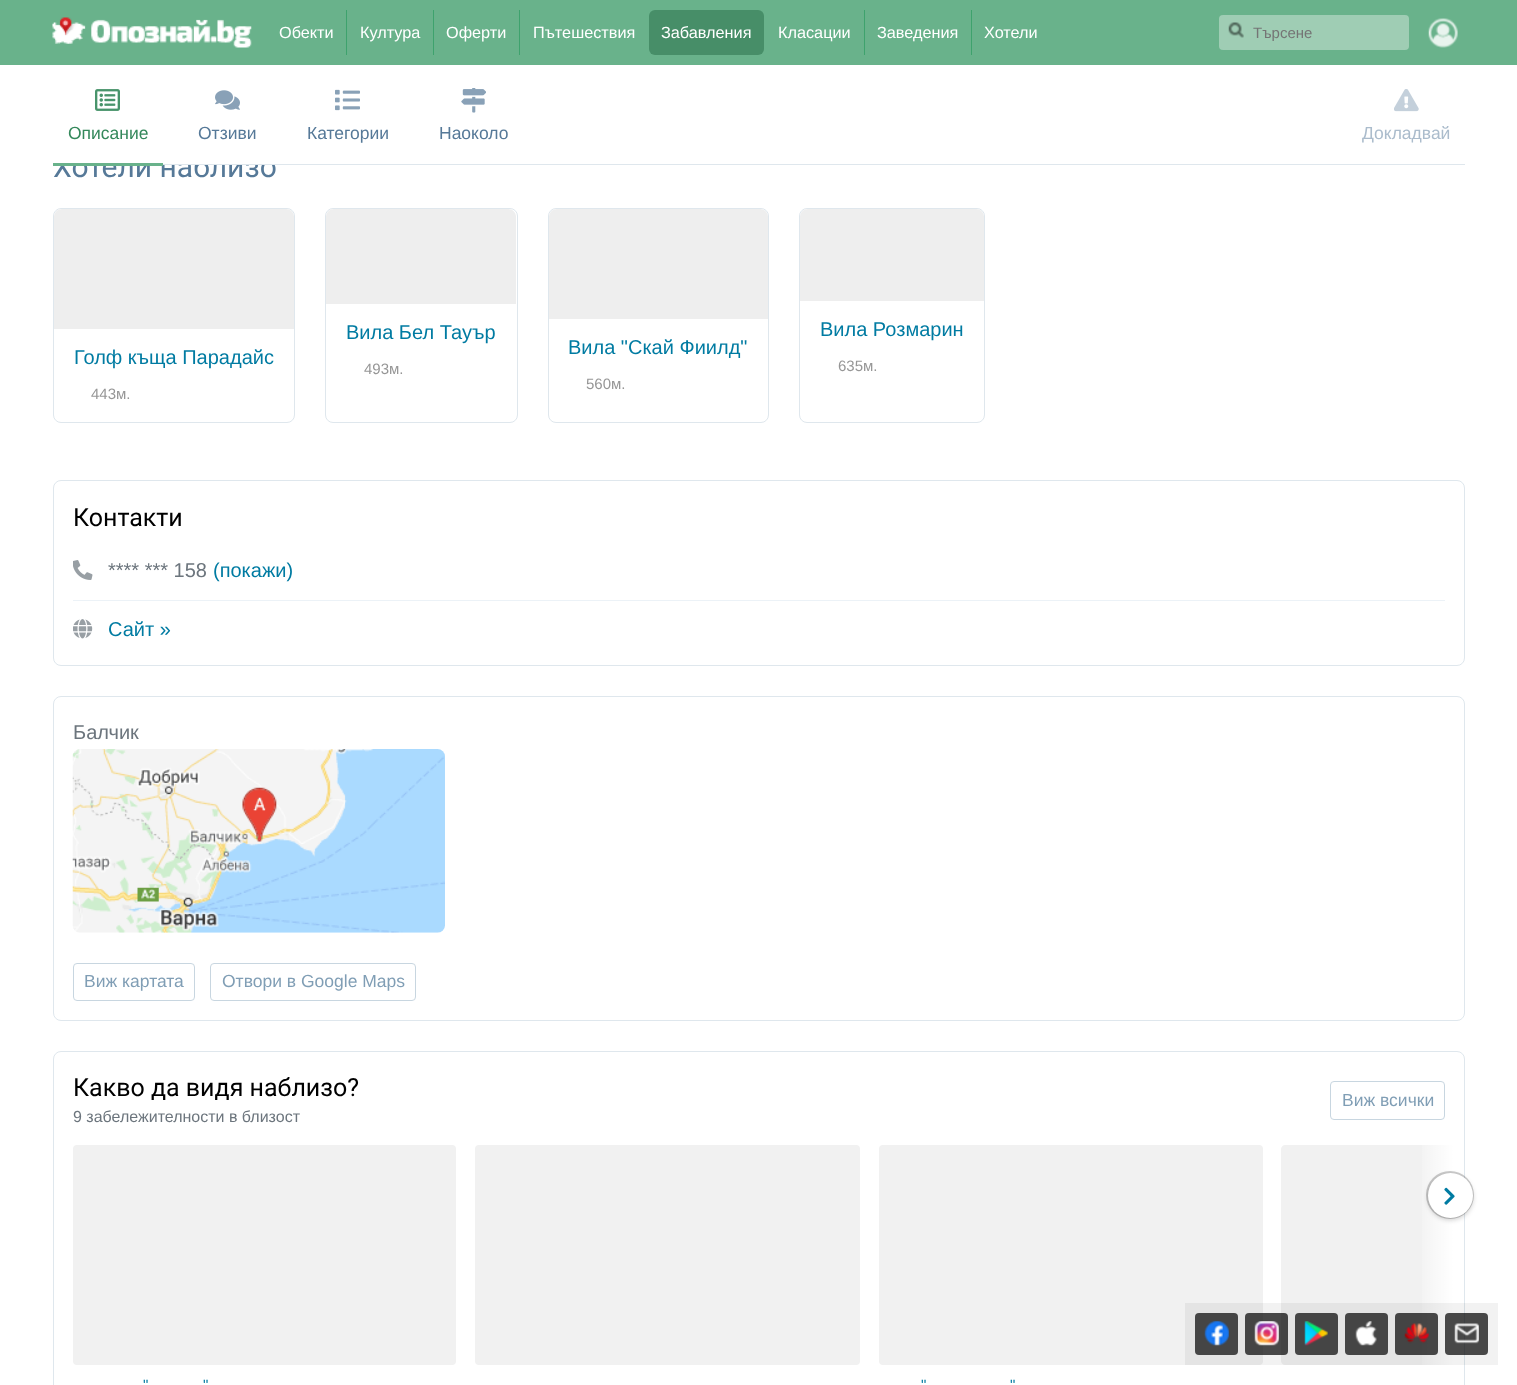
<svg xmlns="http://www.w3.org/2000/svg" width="1517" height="1385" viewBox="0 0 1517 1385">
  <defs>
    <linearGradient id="g1" gradientUnits="userSpaceOnUse" x1="1453" y1="1285" x2="1415" y2="1285"><stop offset="0" stop-color="#fff"/><stop offset="1" stop-color="#fff" stop-opacity="0"/></linearGradient>
  </defs>
  <rect width="100%" height="100%" fill="#fff"/>
  <path d="M0 0h1517v65H0z" fill="#69b28b"/>
  <image x="52" y="17" width="200" height="31" href="img/1.png"/>
  <path d="M346 10h1v45H346z" fill="#3ea26d"/>
  <path d="M433 10h1v45H433z" fill="#3ea26d"/>
  <path d="M519 10h1v45H519z" fill="#3ea26d"/>
  <rect x="649" y="10" width="115" height="45" rx="6" fill="#478e68"/>
  <path d="M864 10h1v45H864z" fill="#3ea26d"/>
  <path d="M971 10h1v45H971z" fill="#3ea26d"/>
  <rect x="1219" y="15" width="190" height="35" rx="4" fill="#87c1a2"/>
  <rect x="1219" y="15" width="190" height="35" rx="4" fill="#ffffff33"/>
  <image x="1228" y="22" width="16" height="16" href="img/2.png"/>
  <image x="1428" y="18" width="30" height="30" href="img/3.png"/>
  <image x="95" y="89" width="25" height="22" href="img/4.png"/>
  <image x="215" y="90" width="25" height="20" href="img/5.png"/>
  <image x="335" y="89" width="25" height="22" href="img/6.png"/>
  <image x="461" y="88" width="25" height="25" href="img/7.png"/>
  <image x="1394" y="89" width="25" height="23" href="img/8.png"/>
  <rect x="53.5" y="208.5" width="241" height="214" rx="7.5" fill="none" stroke="#dfe7ed"/>
  <path d="M62 209H286C290.5 209 294 212.5 294 217V329H54V217C54 212.5 57.5 209 62 209Z" fill="#eee"/>
  <rect x="325.5" y="208.5" width="192" height="214" rx="7.5" fill="none" stroke="#dfe7ed"/>
  <path d="M334 209H508C512.5 209 516 212.5 516 217V304H326V217C326 212.5 329.5 209 334 209Z" fill="#eee"/>
  <rect x="548.5" y="208.5" width="220" height="214" rx="7.5" fill="none" stroke="#dfe7ed"/>
  <path d="M557 209H760C764.5 209 768 212.5 768 217V319H549V217C549 212.5 552.5 209 557 209Z" fill="#eee"/>
  <rect x="799.5" y="208.5" width="185" height="214" rx="7.5" fill="none" stroke="#dfe7ed"/>
  <path d="M808 209H976C980.5 209 984 212.5 984 217V301H800V217C800 212.5 803.5 209 808 209Z" fill="#eee"/>
  <rect x="53.5" y="480.5" width="1411" height="185" rx="7.5" fill="none" stroke="#dfe7ed"/>
  <path d="M73 600h1372v1H73z" fill="#ecf2f7"/>
  <image x="73" y="560" width="20" height="20" href="img/9.png"/>
  <image x="73" y="619" width="20" height="20" href="img/10.png"/>
  <rect x="53.5" y="696.5" width="1411" height="324" rx="7.5" fill="none" stroke="#dfe7ed"/>
  <image x="72" y="749" width="373" height="184" href="img/11.png"/>
  <rect x="73.5" y="963.5" width="121" height="37" rx="3.5" fill="none" stroke="#c8d6e0"/>
  <rect x="210.5" y="963.5" width="205" height="37" rx="3.5" fill="none" stroke="#c8d6e0"/>
  <rect x="53.5" y="1051.5" width="1411" height="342" rx="7.5" fill="none" stroke="#dfe7ed"/>
  <rect x="1330.5" y="1081.5" width="114" height="38" rx="3.5" fill="none" stroke="#c8d6e0"/>
  <path d="M1285 1145H1453V1365H1285C1283 1365 1281 1363 1281 1361V1149C1281 1147 1283 1145 1285 1145Z" fill="#f1f1f1"/>
  <path d="M1422 1145h31v220H1422z" fill="url(#g1)"/>
  <rect x="1428" y="1175" width="45" height="45" rx="22.5" fill="#00000033" filter="blur(2.5px)"/>
  <rect x="1426" y="1171" width="48" height="48" rx="24" fill="#00000033" filter="blur(0.5px)"/>
  <circle cx="1450.5" cy="1195.5" r="22.5" fill="#fff"/>
  <image x="1444" y="1187" width="11" height="18" href="img/12.png"/>
  <rect x="475" y="1145" width="385" height="220" rx="4" fill="#f1f1f1"/>
  <rect x="73" y="1145" width="383" height="220" rx="4" fill="#f1f1f1"/>
  <rect x="879" y="1145" width="384" height="220" rx="4" fill="#f1f1f1"/>
  <path d="M1185 1303h313v62H1185z" fill="#0000000d"/>
  <rect x="1195" y="1313" width="43" height="42" rx="4" fill="#454545"/>
  <image x="1204" y="1321" width="25" height="25" href="img/13.png"/>
  <rect x="1245" y="1313" width="43" height="42" rx="4" fill="#000000b3"/>
  <image x="1254" y="1321" width="25" height="25" href="img/14.png"/>
  <rect x="1295" y="1313" width="43" height="42" rx="4" fill="#454545"/>
  <image x="1304" y="1321" width="24" height="25" href="img/15.png"/>
  <rect x="1345" y="1313" width="43" height="42" rx="4" fill="#454545"/>
  <image x="1355" y="1321" width="22" height="25" href="img/16.png"/>
  <rect x="1395" y="1313" width="43" height="42" rx="4" fill="#000000b3"/>
  <image x="1404" y="1323" width="25" height="21" href="img/17.png"/>
  <rect x="1445" y="1313" width="43" height="42" rx="4" fill="#000000b3"/>
  <image x="1454" y="1323" width="25" height="21" href="img/18.png"/>
  <g font-family="Liberation Sans" font-size="16.25" fill="#fff">
    <text x="279" y="38">Обекти</text>
    <text x="360" y="38">Култура</text>
    <text x="446" y="38">Оферти</text>
    <text x="533" y="38">Пътешествия</text>
    <text x="661" y="38">Забавления</text>
    <text x="778" y="38">Класации</text>
    <text x="877" y="38">Заведения</text>
    <text x="984" y="38">Хотели</text>
  </g>
  <text x="1253" y="38" font-family="Liberation Sans" font-size="15" fill="#757575">Търсене</text>
  <text x="68" y="139" font-family="Liberation Sans" font-size="17.5" fill="#34885b">Описание</text>
  <g font-family="Liberation Sans" font-size="17.5" fill="#567998">
    <text x="198" y="139">Отзиви</text>
    <text x="307" y="139">Категории</text>
    <text x="439" y="139">Наоколо</text>
  </g>
  <text x="1362" y="139" font-family="Liberation Sans" font-size="17.5" fill="#abbccc">Докладвай</text>
  <text x="53" y="177" font-family="Roboto" font-size="30" fill="#567998">Хотели наблизо</text>
  <path d="M53 154h221v10H53z" fill="#fff"/>
  <path d="M53 163h110v3H53z" fill="#69b28b"/>
  <path d="M163 164h1302v1H163z" fill="#dfe7ed"/>
  <text x="74" y="364" font-family="Liberation Sans" font-size="20" fill="#007ba2">Голф къща Парадайс</text>
  <text x="91" y="399" font-family="Liberation Sans" font-size="15" fill="#969696">443м.</text>
  <text x="346" y="339" font-family="Liberation Sans" font-size="20" fill="#007ba2">Вила Бел Тауър</text>
  <text x="364" y="374" font-family="Liberation Sans" font-size="15" fill="#969696">493м.</text>
  <text x="568" y="354" font-family="Liberation Sans" font-size="20" fill="#007ba2">Вила "Скай Фиилд"</text>
  <text x="586" y="389" font-family="Liberation Sans" font-size="15" fill="#969696">560м.</text>
  <text x="820" y="336" font-family="Liberation Sans" font-size="20" fill="#007ba2">Вила Розмарин</text>
  <text x="838" y="371" font-family="Liberation Sans" font-size="15" fill="#969696">635м.</text>
  <text x="73" y="526" font-family="Roboto" font-size="25" fill="#000">Контакти</text>
  <text x="108" y="577" font-family="Liberation Sans" font-size="20" fill="#6c757d">**** *** 158</text>
  <g font-family="Liberation Sans" font-size="20" fill="#007ba2">
    <text x="213" y="577">(покажи)</text>
    <text x="108" y="636">Сайт »</text>
  </g>
  <text x="73" y="739" font-family="Liberation Sans" font-size="20" fill="#6c757d">Балчик</text>
  <g font-family="Liberation Sans" font-size="17.5" fill="#809eb5">
    <text x="84" y="987">Виж картата</text>
    <text x="222" y="987">Отвори в Google Maps</text>
  </g>
  <text x="73" y="1096" font-family="Roboto" font-size="25" fill="#000">Какво да видя наблизо?</text>
  <text x="1342" y="1106" font-family="Liberation Sans" font-size="17.5" fill="#809eb5">Виж всички</text>
  <text x="73" y="1122" font-family="Liberation Sans" font-size="16" fill="#6c757d">9 забележителности в близост</text>
  <g font-family="Liberation Sans" font-size="15" fill="#007ba2">
    <text x="143" y="1390">"</text>
    <text x="203" y="1390">"</text>
    <text x="921" y="1390">"</text>
    <text x="1010" y="1390">"</text>
  </g>
</svg>
